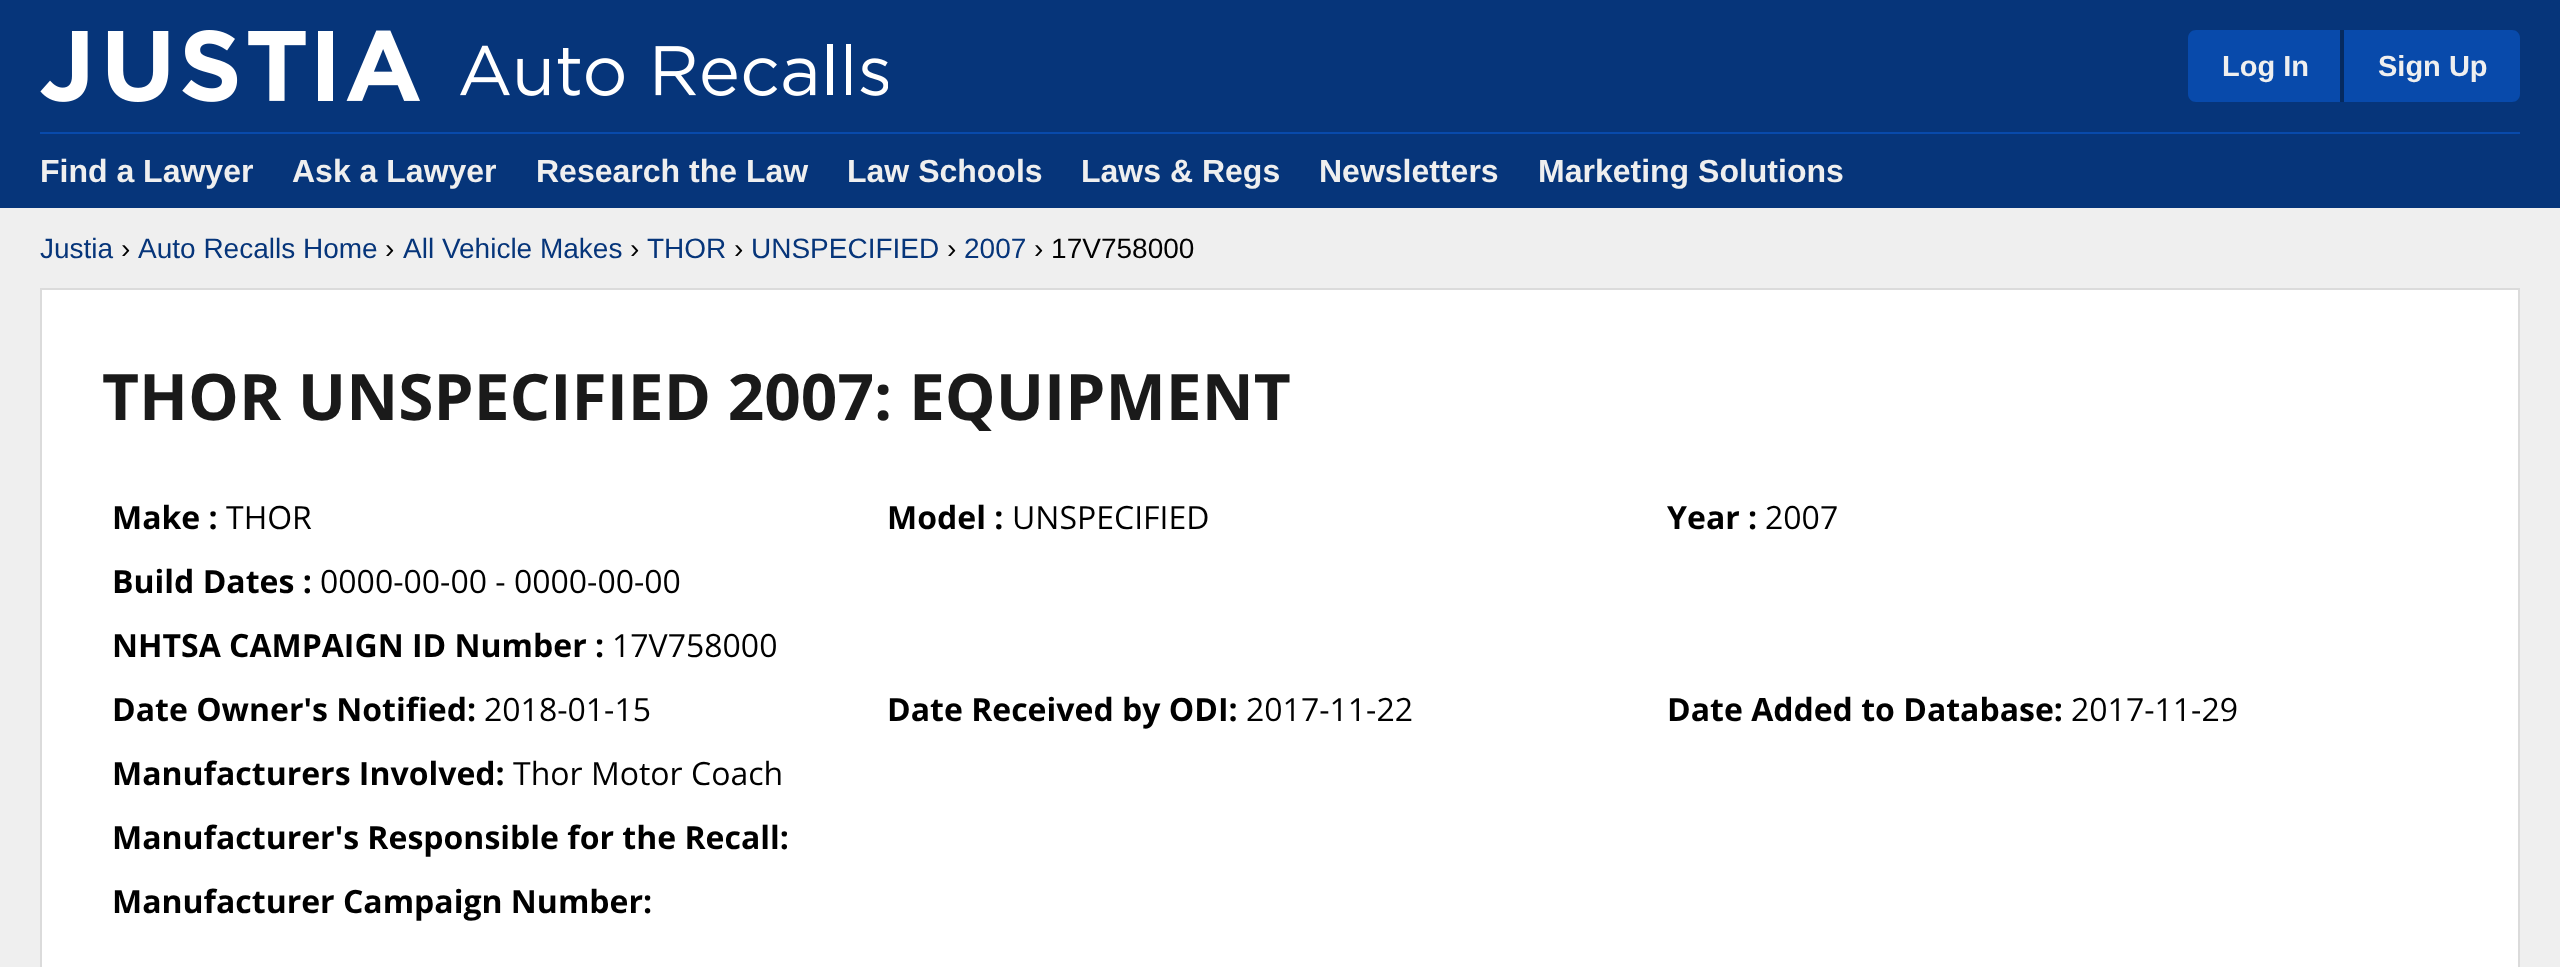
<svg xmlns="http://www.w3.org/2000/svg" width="2560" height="967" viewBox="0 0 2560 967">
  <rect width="100%" height="100%" fill="#efefef"/>
  <path d="M0 0h2560v208H0z" fill="#06357a"/>
  <image x="40" y="30" width="380" height="72" href="img/1.png"/>
  <image x="460" y="44" width="428" height="52" href="img/2.png"/>
  <path d="M2196 30H2340V102H2196C2191.5 102 2188 98.5 2188 94V38C2188 33.5 2191.5 30 2196 30Z" fill="#084aab"/>
  <path d="M2340 30H2512C2516.5 30 2520 33.5 2520 38V94C2520 98.5 2516.5 102 2512 102H2340Z" fill="#084aab"/>
  <path d="M2340 30h4v72H2340z" fill="#052a60"/>
  <path d="M40 132h2480v2H40z" fill="#084aab"/>
  <path d="M41 289h2478v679H41z" fill="#fff" stroke="#dbdbdb" stroke-width="2"/>
  <g font-family="Liberation Sans" font-size="29" font-weight="bold" fill="#efefef">
    <text x="2222" y="76">Log In</text>
    <text x="2378" y="76">Sign Up</text>
  </g>
  <g font-family="Liberation Sans" font-size="32" font-weight="bold" fill="#efefef">
    <text x="40" y="182">Find a Lawyer</text>
    <text x="292" y="182">Ask a Lawyer</text>
    <text x="536" y="182">Research the Law</text>
    <text x="847" y="182">Law Schools</text>
    <text x="1081" y="182">Laws &amp; Regs</text>
    <text x="1319" y="182">Newsletters</text>
    <text x="1538" y="182">Marketing Solutions</text>
  </g>
  <text x="40" y="258" font-family="Liberation Sans" font-size="28" fill="#06357a">Justia</text>
  <text x="121" y="258" font-family="Liberation Sans" font-size="28" fill="#000">›</text>
  <text x="138" y="258" font-family="Liberation Sans" font-size="28" fill="#06357a">Auto Recalls Home</text>
  <text x="385" y="258" font-family="Liberation Sans" font-size="28" fill="#000">›</text>
  <text x="403" y="258" font-family="Liberation Sans" font-size="28" fill="#06357a">All Vehicle Makes</text>
  <text x="630" y="258" font-family="Liberation Sans" font-size="28" fill="#000">›</text>
  <text x="647" y="258" font-family="Liberation Sans" font-size="28" fill="#06357a">THOR</text>
  <text x="734" y="258" font-family="Liberation Sans" font-size="28" fill="#000">›</text>
  <text x="751" y="258" font-family="Liberation Sans" font-size="28" fill="#06357a">UNSPECIFIED</text>
  <text x="947" y="258" font-family="Liberation Sans" font-size="28" fill="#000">›</text>
  <text x="964" y="258" font-family="Liberation Sans" font-size="28" fill="#06357a">2007</text>
  <text x="1034" y="258" font-family="Liberation Sans" font-size="28" fill="#000">› 17V758000</text>
  <text x="102" y="420" font-family="Open Sans" font-size="64" font-weight="bold" fill="#1a1a1a">THOR UNSPECIFIED 2007: EQUIPMENT</text>
  <text x="112" y="529" font-family="Open Sans" font-size="32" font-weight="bold" fill="#000">Make :</text>
  <text x="226" y="529" font-family="Open Sans" font-size="32" fill="#000">THOR</text>
  <text x="887" y="529" font-family="Open Sans" font-size="32" font-weight="bold" fill="#000">Model :</text>
  <text x="1012" y="529" font-family="Open Sans" font-size="32" fill="#000">UNSPECIFIED</text>
  <text x="1667" y="529" font-family="Open Sans" font-size="32" font-weight="bold" fill="#000">Year :</text>
  <text x="1765" y="529" font-family="Open Sans" font-size="32" fill="#000">2007</text>
  <text x="112" y="593" font-family="Open Sans" font-size="32" font-weight="bold" fill="#000">Build Dates :</text>
  <text x="320" y="593" font-family="Open Sans" font-size="32" fill="#000">0000-00-00 - 0000-00-00</text>
  <text x="112" y="657" font-family="Open Sans" font-size="32" font-weight="bold" fill="#000">NHTSA CAMPAIGN ID Number :</text>
  <text x="612" y="657" font-family="Open Sans" font-size="32" fill="#000">17V758000</text>
  <text x="112" y="721" font-family="Open Sans" font-size="32" font-weight="bold" fill="#000">Date Owner's Notified:</text>
  <text x="484" y="721" font-family="Open Sans" font-size="32" fill="#000">2018-01-15</text>
  <text x="887" y="721" font-family="Open Sans" font-size="32" font-weight="bold" fill="#000">Date Received by ODI:</text>
  <text x="1246" y="721" font-family="Open Sans" font-size="32" fill="#000">2017-11-22</text>
  <text x="1667" y="721" font-family="Open Sans" font-size="32" font-weight="bold" fill="#000">Date Added to Database:</text>
  <text x="2071" y="721" font-family="Open Sans" font-size="32" fill="#000">2017-11-29</text>
  <text x="112" y="785" font-family="Open Sans" font-size="32" font-weight="bold" fill="#000">Manufacturers Involved:</text>
  <text x="513" y="785" font-family="Open Sans" font-size="32" fill="#000">Thor Motor Coach</text>
  <g font-family="Open Sans" font-size="32" font-weight="bold" fill="#000">
    <text x="112" y="849">Manufacturer's Responsible for the Recall:</text>
    <text x="112" y="913">Manufacturer Campaign Number:</text>
  </g>
</svg>
